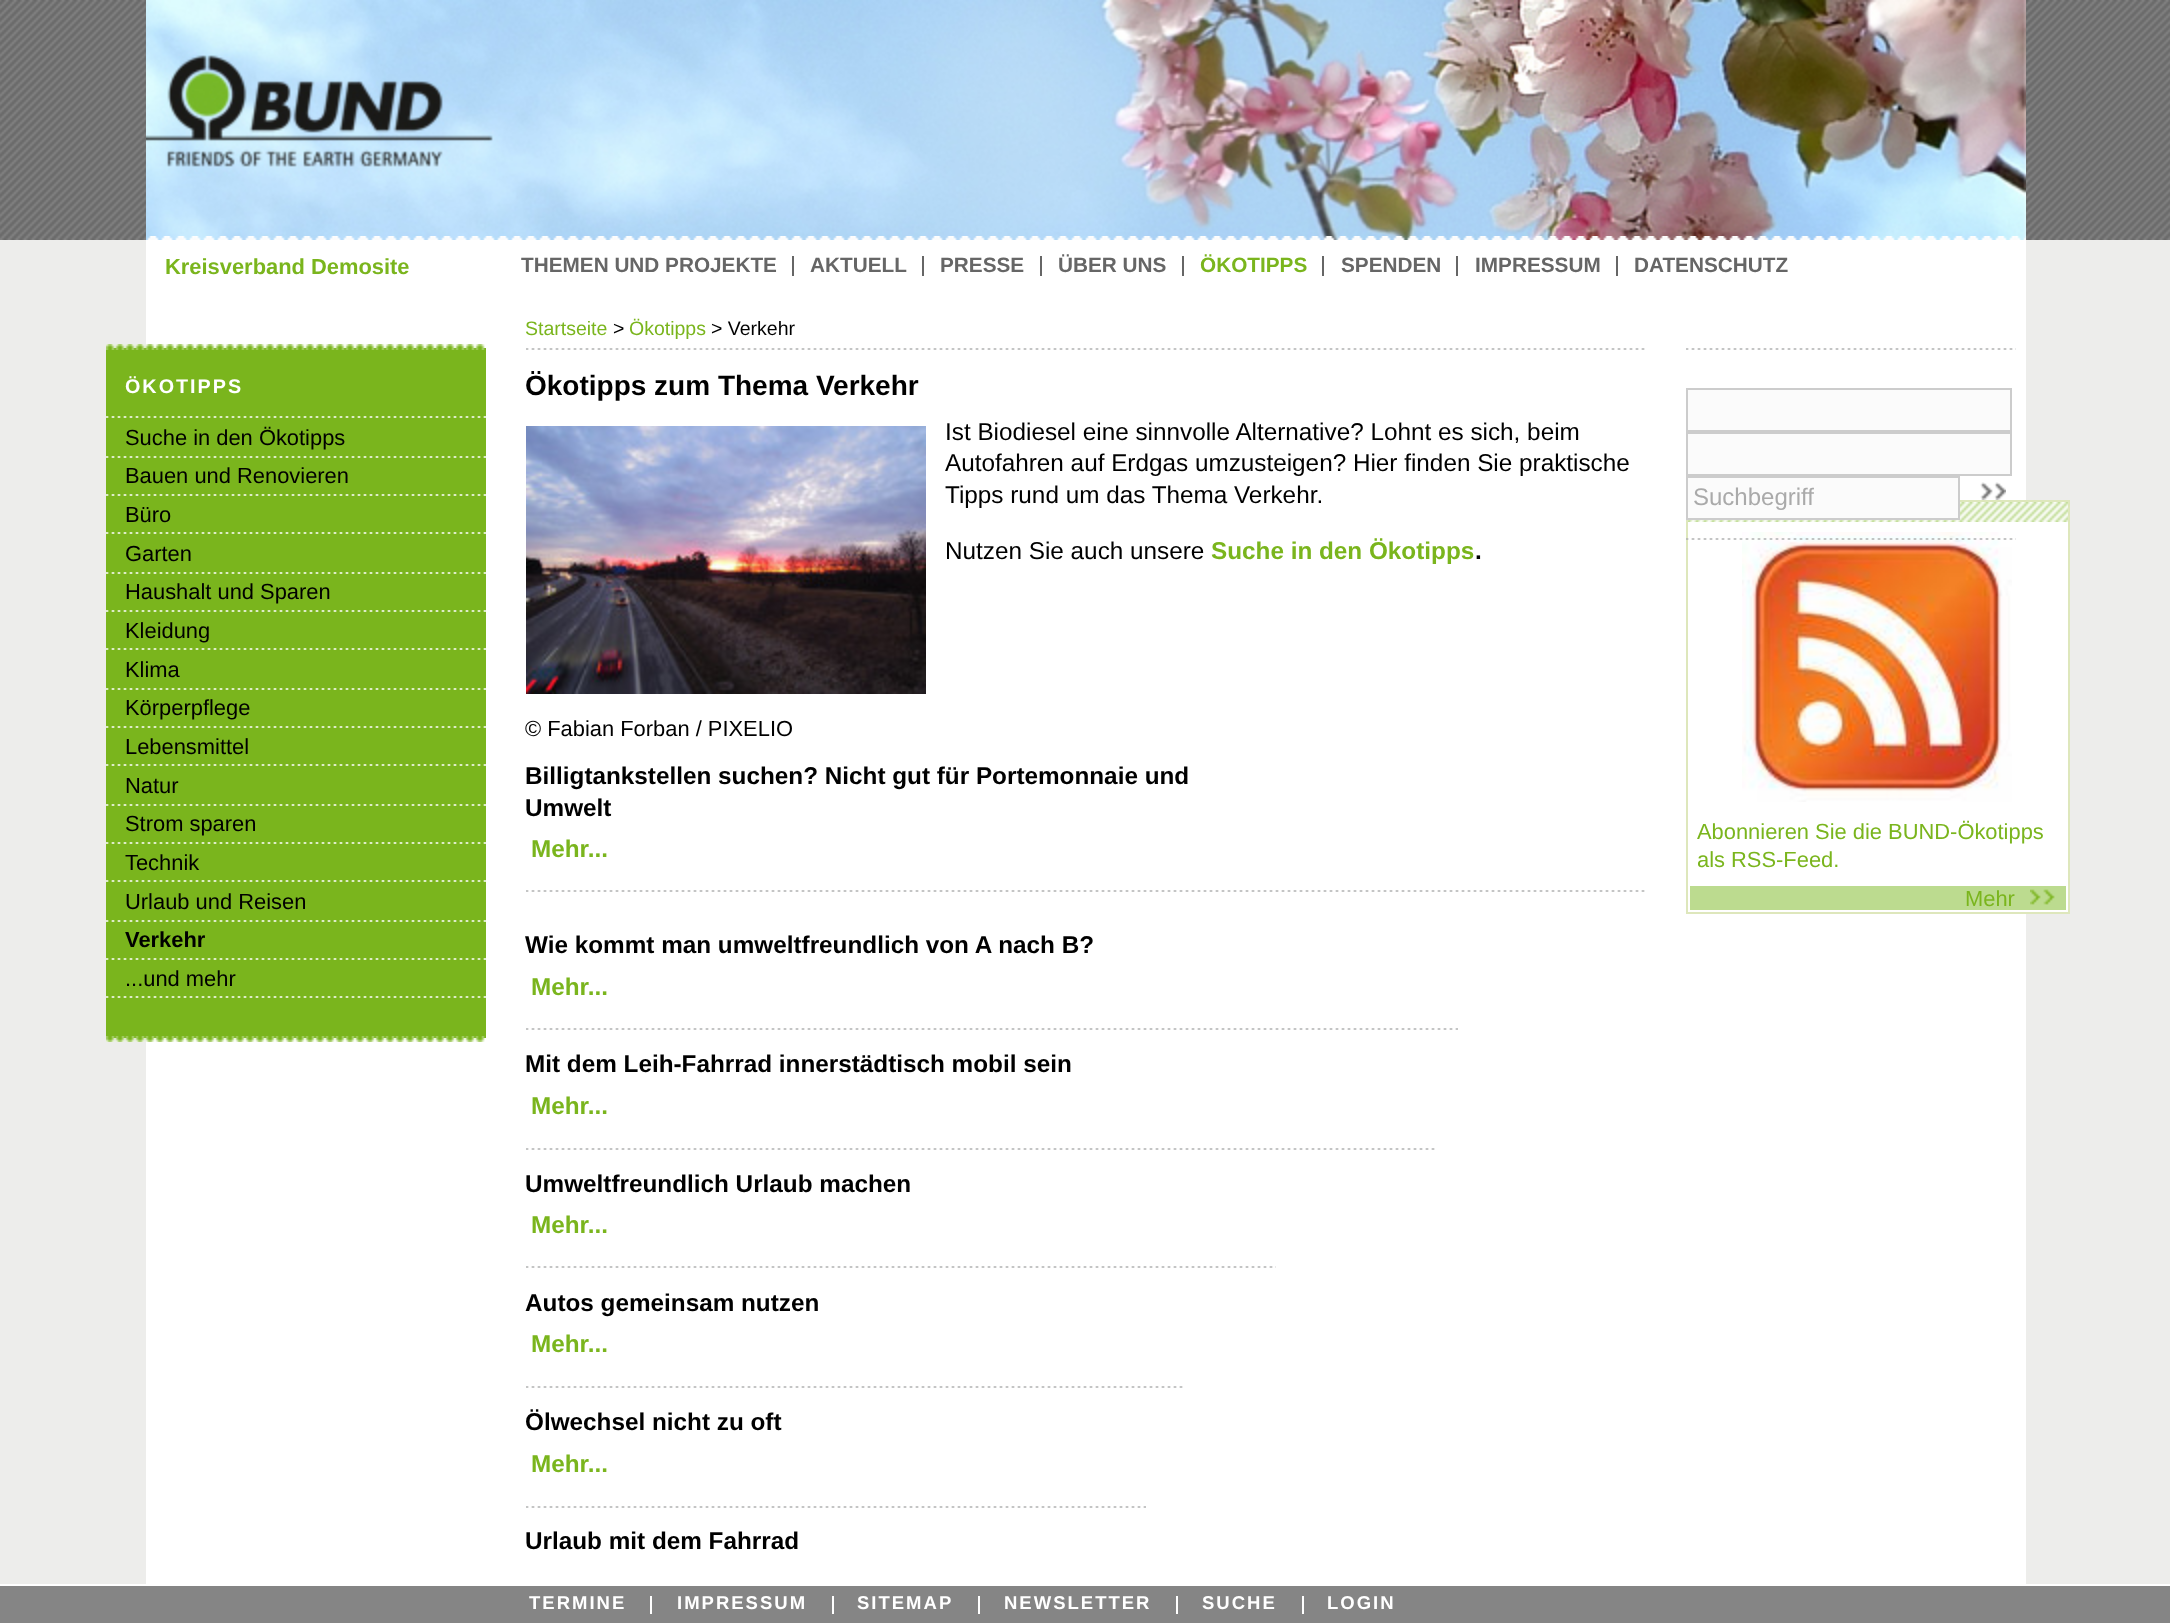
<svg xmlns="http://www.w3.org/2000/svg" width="2170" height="1623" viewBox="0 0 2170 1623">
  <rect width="100%" height="100%" fill="#ededeb"/>
  <image x="0" y="0" width="2170" height="240" href="img/1.png"/>
  <path d="M146 240h1880v1344H146z" fill="#fff"/>
  <path d="M792 256h2v20H792z" fill="#666"/>
  <path d="M922 256h2v20H922z" fill="#666"/>
  <path d="M1040 256h2v20H1040z" fill="#666"/>
  <path d="M1182 256h2v20H1182z" fill="#666"/>
  <path d="M1322 256h2v20H1322z" fill="#666"/>
  <path d="M1456 256h2v20H1456z" fill="#666"/>
  <path d="M1616 256h2v20H1616z" fill="#666"/>
  <path d="M106 348h380v690H106z" fill="#7ab51d"/>
  <image x="106" y="344" width="379" height="6" href="img/2.png"/>
  <image x="106" y="416" width="380" height="2" href="img/3.png"/>
  <image x="106" y="456" width="380" height="2" href="img/3.png"/>
  <image x="106" y="494" width="380" height="2" href="img/3.png"/>
  <image x="106" y="532" width="380" height="2" href="img/3.png"/>
  <image x="106" y="572" width="380" height="2" href="img/3.png"/>
  <image x="106" y="610" width="380" height="2" href="img/3.png"/>
  <image x="106" y="648" width="380" height="2" href="img/3.png"/>
  <image x="106" y="688" width="380" height="2" href="img/3.png"/>
  <image x="106" y="726" width="380" height="2" href="img/3.png"/>
  <image x="106" y="764" width="380" height="2" href="img/3.png"/>
  <image x="106" y="804" width="380" height="2" href="img/3.png"/>
  <image x="106" y="842" width="380" height="2" href="img/3.png"/>
  <image x="106" y="880" width="380" height="2" href="img/3.png"/>
  <image x="106" y="920" width="380" height="2" href="img/3.png"/>
  <image x="106" y="958" width="380" height="2" href="img/3.png"/>
  <image x="106" y="996" width="380" height="2" href="img/3.png"/>
  <image x="106" y="1036" width="379" height="6" href="img/4.png"/>
  <image x="526" y="348" width="1119" height="2" href="img/5.png"/>
  <image x="526" y="426" width="400" height="268" href="img/6.png"/>
  <image x="526" y="890" width="1119" height="2" href="img/5.png"/>
  <image x="526" y="1028" width="932" height="2" href="img/7.png"/>
  <image x="526" y="1148" width="909" height="2" href="img/8.png"/>
  <image x="526" y="1266" width="750" height="2" href="img/9.png"/>
  <image x="526" y="1386" width="657" height="2" href="img/10.png"/>
  <image x="526" y="1506" width="620" height="2" href="img/11.png"/>
  <image x="1686" y="348" width="330" height="2" href="img/12.png"/>
  <path d="M2026 522h42v362H2026z" fill="#fff"/>
  <image x="1688" y="502" width="380" height="20" href="img/15.png"/>
  <path d="M1687 501h382v412H1687z" fill="none" stroke="#dee7bc" stroke-width="2"/>
  <image x="1742" y="532" width="270" height="270" href="img/16.png"/>
  <image x="1686" y="538" width="330" height="2" href="img/13.png"/>
  <path d="M1687 389h324v42H1687z" fill="#fbfbfb" stroke="#ccc" stroke-width="2"/>
  <path d="M1687 433h324v42H1687z" fill="#fbfbfb" stroke="#ccc" stroke-width="2"/>
  <path d="M1687 477h272v42H1687z" fill="#fbfbfb" stroke="#ccc" stroke-width="2"/>
  <image x="1980" y="482" width="26" height="18" href="img/14.png"/>
  <path d="M1690 886h376v24H1690z" fill="#bcdb8f"/>
  <image x="2030" y="889" width="25" height="16" href="img/17.png"/>
  <path d="M1689 885h378v26H1689z" fill="none" stroke="#fff" stroke-width="2"/>
  <image x="146" y="0" width="1880" height="240" href="img/18.png"/>
  <image x="147" y="236" width="1879" height="4" href="img/19.png"/>
  <path d="M0 1586h2170v37H0z" fill="#858585"/>
  <path d="M0 1584h2170v2H0z" fill="#fff"/>
  <path d="M650 1596h2v18H650z" fill="#fff"/>
  <path d="M832 1596h2v18H832z" fill="#fff"/>
  <path d="M978 1596h2v18H978z" fill="#fff"/>
  <path d="M1176 1596h2v18H1176z" fill="#fff"/>
  <path d="M1302 1596h2v18H1302z" fill="#fff"/>
  <g font-family="Liberation Sans" font-size="20.75" font-weight="bold" fill="#666">
    <text x="521" y="272">THEMEN UND PROJEKTE</text>
    <text x="810" y="272">AKTUELL</text>
    <text x="940" y="272">PRESSE</text>
    <text x="1058" y="272">ÜBER UNS</text>
  </g>
  <text x="1200" y="272" font-family="Liberation Sans" font-size="20.75" font-weight="bold" fill="#7ab51d">ÖKOTIPPS</text>
  <g font-family="Liberation Sans" font-size="20.75" font-weight="bold" fill="#666">
    <text x="1341" y="272">SPENDEN</text>
    <text x="1475" y="272">IMPRESSUM</text>
    <text x="1634" y="272">DATENSCHUTZ</text>
  </g>
  <text x="525" y="335" font-family="Liberation Sans" font-size="19.5" fill="#7ab51d">Startseite</text>
  <text x="613" y="335" font-family="Liberation Sans" font-size="19.5" fill="#000">&gt;</text>
  <text x="629" y="335" font-family="Liberation Sans" font-size="19.5" fill="#7ab51d">Ökotipps</text>
  <text x="711" y="335" font-family="Liberation Sans" font-size="19.5" fill="#000">&gt; Verkehr</text>
  <text x="125" y="393" font-family="Liberation Sans" font-size="19.75" font-weight="bold" letter-spacing="2" fill="#fff">ÖKOTIPPS</text>
  <g font-family="Liberation Sans" font-size="21.9" fill="#000">
    <text x="125" y="445">Suche in den Ökotipps</text>
    <text x="125" y="483">Bauen und Renovieren</text>
    <text x="125" y="522">Büro</text>
    <text x="125" y="561">Garten</text>
    <text x="125" y="599">Haushalt und Sparen</text>
    <text x="125" y="638">Kleidung</text>
    <text x="125" y="677">Klima</text>
    <text x="125" y="715">Körperpflege</text>
    <text x="125" y="754">Lebensmittel</text>
    <text x="125" y="793">Natur</text>
    <text x="125" y="831">Strom sparen</text>
    <text x="125" y="870">Technik</text>
    <text x="125" y="909">Urlaub und Reisen</text>
  </g>
  <text x="125" y="947" font-family="Liberation Sans" font-size="21.9" font-weight="bold" fill="#000">Verkehr</text>
  <text x="125" y="986" font-family="Liberation Sans" font-size="21.9" fill="#000">...und mehr</text>
  <text x="525" y="395" font-family="Liberation Sans" font-size="28" font-weight="bold" fill="#000">Ökotipps zum Thema Verkehr</text>
  <g font-family="Liberation Sans" font-size="24.3" fill="#000">
    <text x="945" y="440">Ist Biodiesel eine sinnvolle Alternative? Lohnt es sich, beim</text>
    <text x="945" y="471">Autofahren auf Erdgas umzusteigen? Hier finden Sie praktische</text>
    <text x="945" y="503">Tipps rund um das Thema Verkehr.</text>
    <text x="945" y="559">Nutzen Sie auch unsere</text>
  </g>
  <text x="1211" y="559" font-family="Liberation Sans" font-size="24.3" font-weight="bold" fill="#7ab51d">Suche in den Ökotipps</text>
  <text x="1475" y="559" font-family="Liberation Sans" font-size="24.3" font-weight="bold" fill="#000">.</text>
  <text x="525" y="736" font-family="Liberation Sans" font-size="21.9" fill="#000">© Fabian Forban / PIXELIO</text>
  <g font-family="Liberation Sans" font-size="24.3" font-weight="bold" fill="#000">
    <text x="525" y="784">Billigtankstellen suchen? Nicht gut für Portemonnaie und</text>
    <text x="525" y="816">Umwelt</text>
  </g>
  <text x="531" y="857" font-family="Liberation Sans" font-size="24.3" font-weight="bold" fill="#7ab51d">Mehr...</text>
  <text x="525" y="953" font-family="Liberation Sans" font-size="24.3" font-weight="bold" fill="#000">Wie kommt man umweltfreundlich von A nach B?</text>
  <text x="531" y="995" font-family="Liberation Sans" font-size="24.3" font-weight="bold" fill="#7ab51d">Mehr...</text>
  <text x="525" y="1072" font-family="Liberation Sans" font-size="24.3" font-weight="bold" fill="#000">Mit dem Leih-Fahrrad innerstädtisch mobil sein</text>
  <text x="531" y="1114" font-family="Liberation Sans" font-size="24.3" font-weight="bold" fill="#7ab51d">Mehr...</text>
  <text x="525" y="1192" font-family="Liberation Sans" font-size="24.3" font-weight="bold" fill="#000">Umweltfreundlich Urlaub machen</text>
  <text x="531" y="1233" font-family="Liberation Sans" font-size="24.3" font-weight="bold" fill="#7ab51d">Mehr...</text>
  <text x="525" y="1311" font-family="Liberation Sans" font-size="24.3" font-weight="bold" fill="#000">Autos gemeinsam nutzen</text>
  <text x="531" y="1352" font-family="Liberation Sans" font-size="24.3" font-weight="bold" fill="#7ab51d">Mehr...</text>
  <text x="525" y="1430" font-family="Liberation Sans" font-size="24.3" font-weight="bold" fill="#000">Ölwechsel nicht zu oft</text>
  <text x="531" y="1472" font-family="Liberation Sans" font-size="24.3" font-weight="bold" fill="#7ab51d">Mehr...</text>
  <text x="525" y="1549" font-family="Liberation Sans" font-size="24.3" font-weight="bold" fill="#000">Urlaub mit dem Fahrrad</text>
  <text x="1693" y="505" font-family="Liberation Sans" font-size="24" fill="#aaa">Suchbegriff</text>
  <g font-family="Liberation Sans" font-size="21.9" fill="#7ab51d">
    <text x="1697" y="839">Abonnieren Sie die BUND-Ökotipps</text>
    <text x="1697" y="867">als RSS-Feed.</text>
    <text x="1965" y="906">Mehr</text>
  </g>
  <text x="165" y="274" font-family="Liberation Sans" font-size="21.9" font-weight="bold" fill="#7ab51d">Kreisverband Demosite</text>
  <g font-family="Liberation Sans" font-size="18.5" font-weight="bold" letter-spacing="2" fill="#fff">
    <text x="529" y="1609">TERMINE</text>
    <text x="677" y="1609">IMPRESSUM</text>
    <text x="857" y="1609">SITEMAP</text>
    <text x="1004" y="1609">NEWSLETTER</text>
    <text x="1202" y="1609">SUCHE</text>
    <text x="1327" y="1609">LOGIN</text>
  </g>
</svg>
